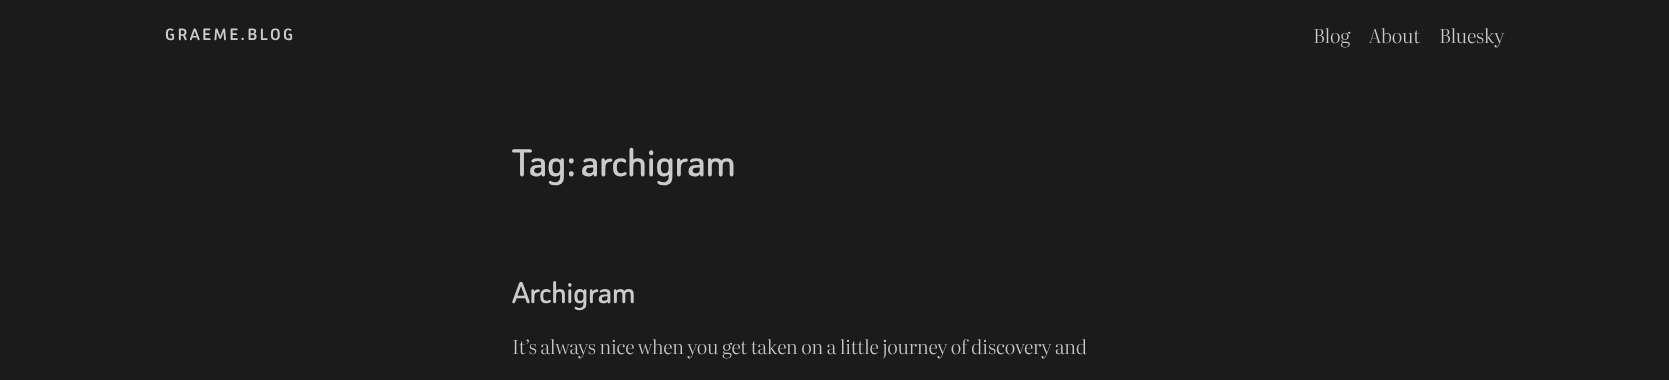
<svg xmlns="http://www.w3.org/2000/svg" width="1669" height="380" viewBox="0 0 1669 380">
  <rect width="100%" height="100%" fill="#1b1b1b"/>
  <text x="165" y="40" font-family="Beiruti" font-size="19.2" font-weight="600" letter-spacing="2.4" fill="#cbcbcb">GRAEME.BLOG</text>
  <g font-family="Literata" font-size="19.2" font-weight="300" letter-spacing="-0.2" fill="#cbcbcb">
    <text x="1313" y="43">Blog</text>
    <text x="1369" y="43">About</text>
    <text x="1439" y="43">Bluesky</text>
  </g>
  <text x="512" y="176" font-family="Beiruti" font-size="45" font-weight="500" letter-spacing="-0.9" fill="#cbcbcb">Tag: archigram</text>
  <text x="512" y="303" font-family="Beiruti" font-size="35" font-weight="500" letter-spacing="-0.75" fill="#cbcbcb">Archigram</text>
  <text x="512" y="354" font-family="Literata" font-size="19.2" font-weight="300" letter-spacing="-0.2" fill="#cbcbcb">It’s always nice when you get taken on a little journey of discovery and</text>
</svg>
